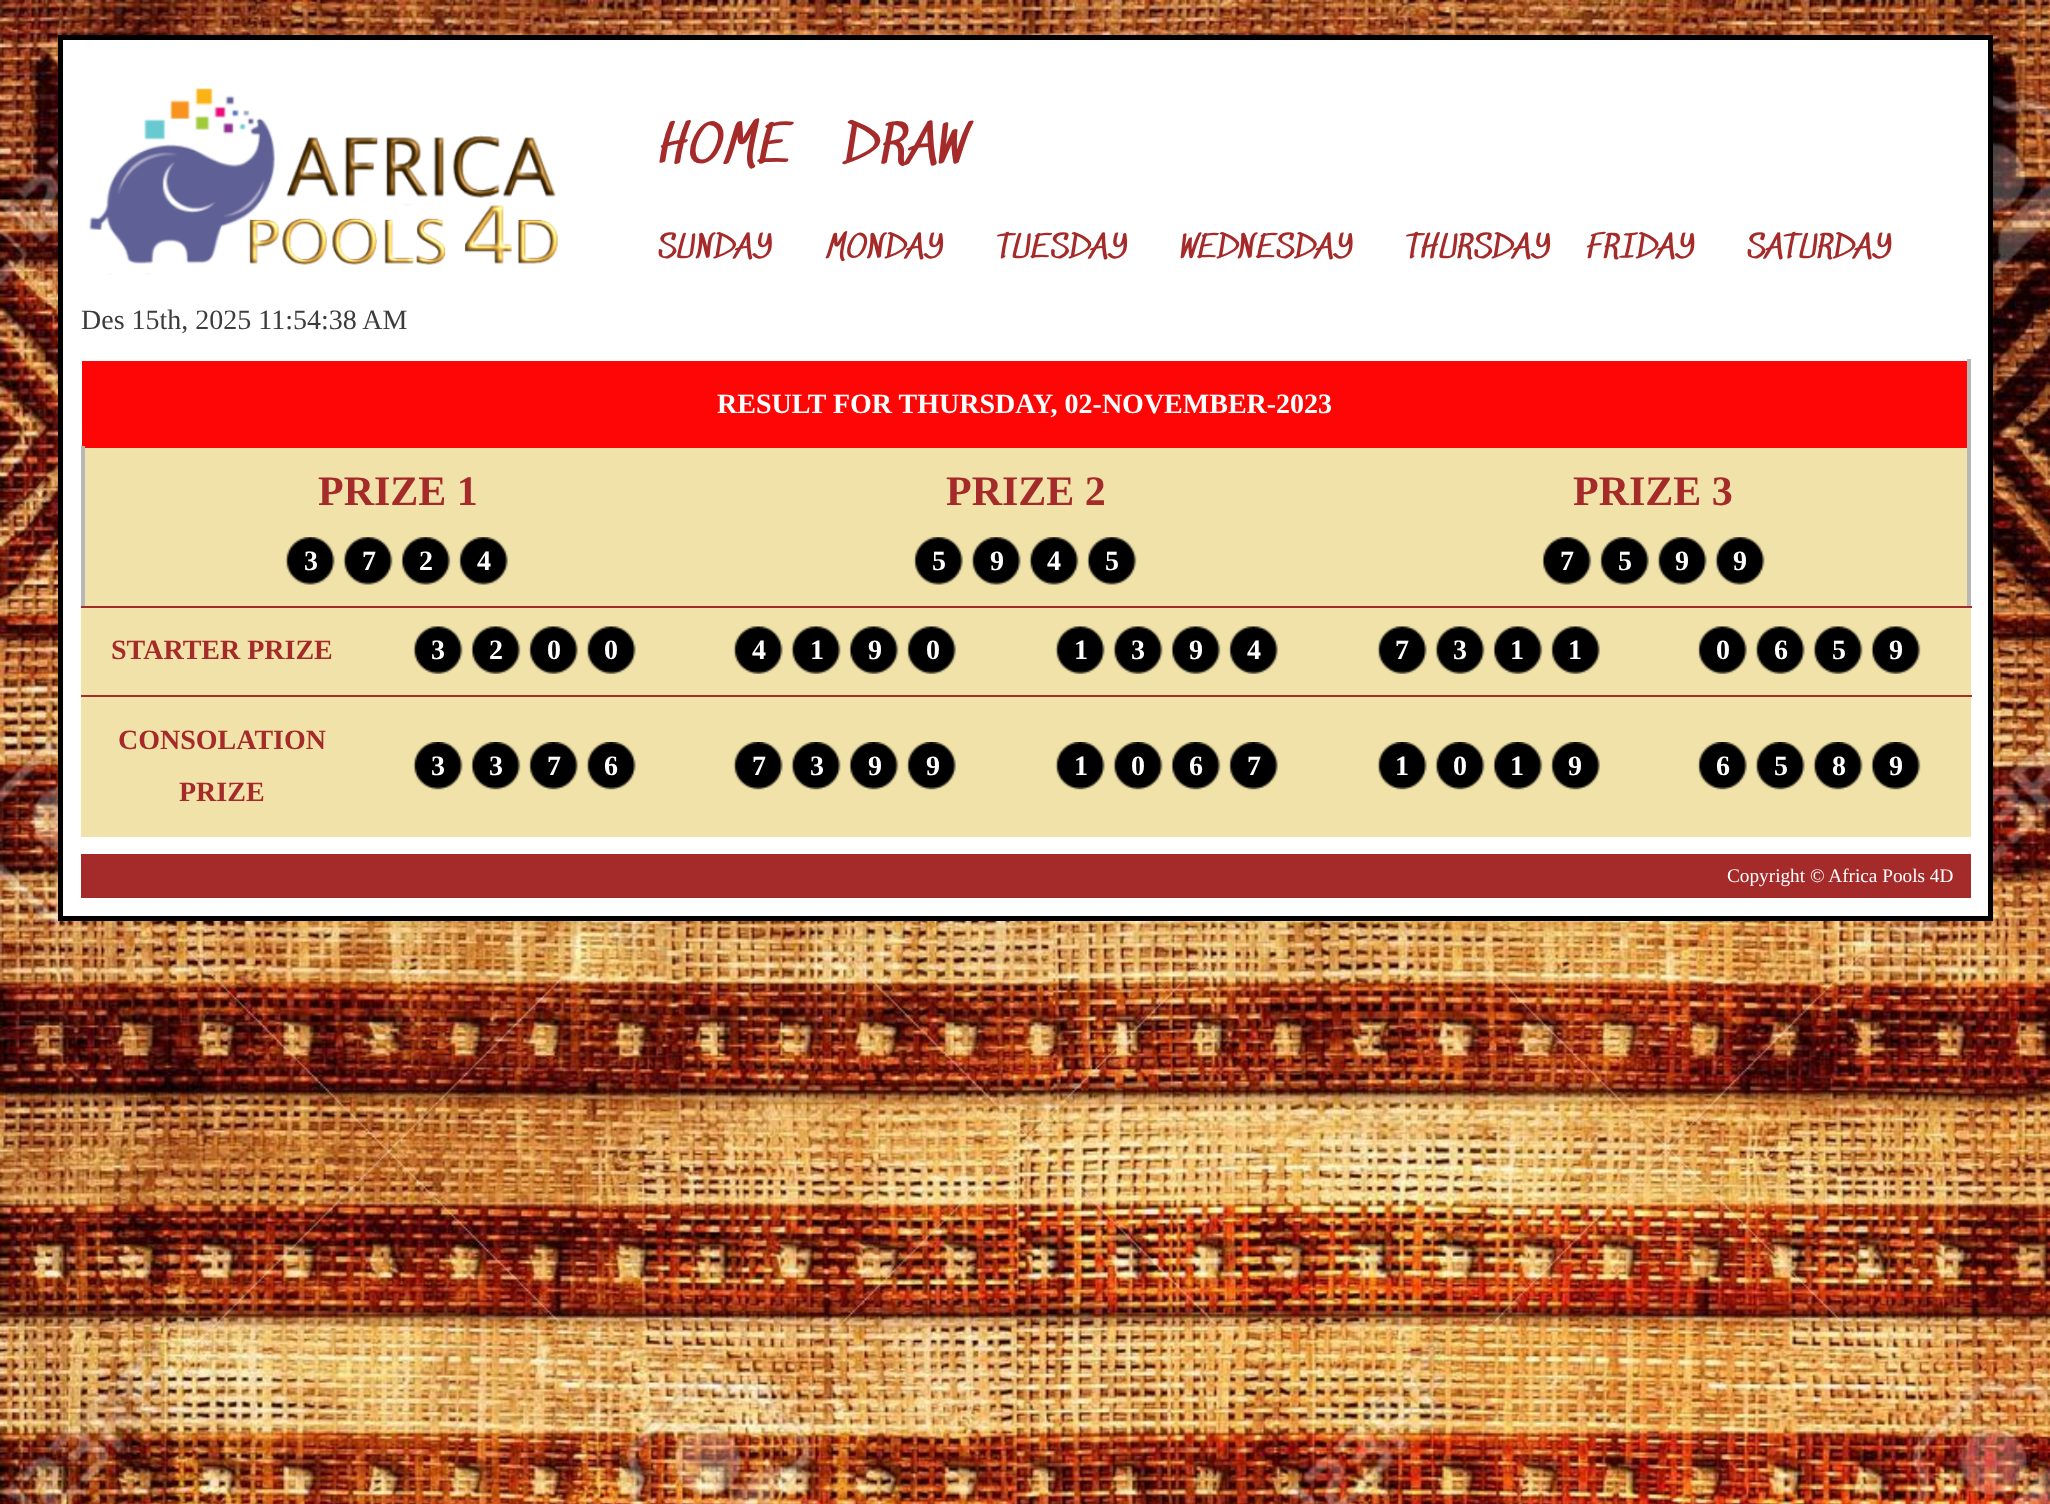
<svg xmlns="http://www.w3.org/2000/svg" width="2050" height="1504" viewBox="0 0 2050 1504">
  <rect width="100%" height="100%" fill="#fff"/>
  <image x="0" y="0" width="2050" height="1504" href="img/1.png"/>
  <path d="M60.5 37.5h1930v881H60.5z" fill="#fff" stroke="#000" stroke-width="5"/>
  <image x="89" y="88" width="469" height="187" href="img/2.png"/>
  <path d="M82 361h1885v87H82z" fill="#ff0606"/>
  <path d="M85 448h1882v158H85z" fill="#f0e2a9"/>
  <path d="M81 446h4v161H81z" fill="#b7b7b7"/>
  <image x="285" y="537" width="50" height="48" href="img/3.png"/>
  <image x="343" y="537" width="50" height="48" href="img/4.png"/>
  <image x="401" y="537" width="50" height="48" href="img/5.png"/>
  <image x="458" y="537" width="50" height="48" href="img/6.png"/>
  <image x="913" y="537" width="50" height="48" href="img/6.png"/>
  <image x="971" y="537" width="50" height="48" href="img/3.png"/>
  <image x="1029" y="537" width="50" height="48" href="img/7.png"/>
  <image x="1087" y="537" width="50" height="48" href="img/8.png"/>
  <path d="M1967 359h4v248H1967z" fill="#b7b7b7"/>
  <image x="1542" y="537" width="50" height="48" href="img/5.png"/>
  <image x="1599" y="537" width="50" height="48" href="img/6.png"/>
  <image x="1657" y="537" width="50" height="48" href="img/3.png"/>
  <image x="1715" y="537" width="50" height="48" href="img/9.png"/>
  <path d="M81 608h1890v87H81z" fill="#f0e2a9"/>
  <image x="413" y="626" width="50" height="48" href="img/10.png"/>
  <image x="471" y="626" width="50" height="48" href="img/11.png"/>
  <image x="528" y="626" width="50" height="48" href="img/12.png"/>
  <image x="586" y="626" width="50" height="48" href="img/13.png"/>
  <image x="733" y="626" width="50" height="48" href="img/14.png"/>
  <image x="791" y="626" width="50" height="48" href="img/10.png"/>
  <image x="849" y="626" width="50" height="48" href="img/11.png"/>
  <image x="906" y="626" width="50" height="48" href="img/15.png"/>
  <image x="1055" y="626" width="50" height="48" href="img/13.png"/>
  <image x="1113" y="626" width="50" height="48" href="img/10.png"/>
  <image x="1171" y="626" width="50" height="48" href="img/11.png"/>
  <image x="1228" y="626" width="50" height="48" href="img/12.png"/>
  <image x="1377" y="626" width="50" height="48" href="img/13.png"/>
  <image x="1435" y="626" width="50" height="48" href="img/10.png"/>
  <image x="1493" y="626" width="50" height="48" href="img/11.png"/>
  <image x="1550" y="626" width="50" height="48" href="img/12.png"/>
  <path d="M81 606h1891v2H81z" fill="#a52a2a"/>
  <image x="1697" y="626" width="50" height="48" href="img/15.png"/>
  <image x="1755" y="626" width="50" height="48" href="img/16.png"/>
  <image x="1813" y="626" width="50" height="48" href="img/17.png"/>
  <image x="1871" y="626" width="50" height="48" href="img/18.png"/>
  <path d="M81 697h1890v140H81z" fill="#f0e2a9"/>
  <image x="413" y="742" width="50" height="48" href="img/19.png"/>
  <image x="471" y="742" width="50" height="48" href="img/20.png"/>
  <image x="528" y="742" width="50" height="48" href="img/21.png"/>
  <image x="586" y="742" width="50" height="48" href="img/22.png"/>
  <image x="733" y="742" width="50" height="48" href="img/23.png"/>
  <image x="791" y="742" width="50" height="48" href="img/19.png"/>
  <image x="849" y="742" width="50" height="48" href="img/20.png"/>
  <image x="906" y="742" width="50" height="48" href="img/24.png"/>
  <image x="1055" y="742" width="50" height="48" href="img/22.png"/>
  <image x="1113" y="742" width="50" height="48" href="img/19.png"/>
  <image x="1171" y="742" width="50" height="48" href="img/20.png"/>
  <image x="1228" y="742" width="50" height="48" href="img/21.png"/>
  <image x="1377" y="742" width="50" height="48" href="img/22.png"/>
  <image x="1435" y="742" width="50" height="48" href="img/19.png"/>
  <image x="1493" y="742" width="50" height="48" href="img/20.png"/>
  <image x="1550" y="742" width="50" height="48" href="img/21.png"/>
  <path d="M81 695h1891v2H81z" fill="#a52a2a"/>
  <image x="1697" y="742" width="50" height="48" href="img/24.png"/>
  <image x="1755" y="742" width="50" height="48" href="img/25.png"/>
  <image x="1813" y="742" width="50" height="48" href="img/26.png"/>
  <image x="1871" y="742" width="50" height="48" href="img/27.png"/>
  <path d="M81 854h1890v44H81z" fill="#a52a2a"/>
  <g font-family="Sedgwick Ave" font-size="52.5" fill="#a52a2a">
    <text x="658" y="165">HOME</text>
    <text x="844" y="165">DRAW</text>
  </g>
  <g font-family="Sedgwick Ave" font-size="31.5" fill="#a52a2a">
    <text x="658" y="259">SUNDAY</text>
    <text x="825" y="259">MONDAY</text>
    <text x="997" y="259">TUESDAY</text>
    <text x="1180" y="259">WEDNESDAY</text>
    <text x="1406" y="259">THURSDAY</text>
    <text x="1586" y="259">FRIDAY</text>
    <text x="1747" y="259">SATURDAY</text>
  </g>
  <text x="81" y="329" font-family="Liberation Serif" font-size="28" fill="#3c3c3b">Des 15th, 2025 11:54:38 AM</text>
  <text x="717" y="413" font-family="Liberation Serif" font-size="28" font-weight="bold" fill="#fff">RESULT FOR THURSDAY, 02-NOVEMBER-2023</text>
  <text x="318" y="505" font-family="Liberation Serif" font-size="42" font-weight="bold" fill="#a52a2a">PRIZE 1</text>
  <g font-family="Liberation Serif" font-size="28" font-weight="bold" fill="#fff">
    <text x="304" y="570">3</text>
    <text x="362" y="570">7</text>
    <text x="419" y="570">2</text>
    <text x="477" y="570">4</text>
  </g>
  <text x="946" y="505" font-family="Liberation Serif" font-size="42" font-weight="bold" fill="#a52a2a">PRIZE 2</text>
  <g font-family="Liberation Serif" font-size="28" font-weight="bold" fill="#fff">
    <text x="932" y="570">5</text>
    <text x="990" y="570">9</text>
    <text x="1047" y="570">4</text>
    <text x="1105" y="570">5</text>
  </g>
  <text x="1573" y="505" font-family="Liberation Serif" font-size="42" font-weight="bold" fill="#a52a2a">PRIZE 3</text>
  <g font-family="Liberation Serif" font-size="28" font-weight="bold" fill="#fff">
    <text x="1560" y="570">7</text>
    <text x="1618" y="570">5</text>
    <text x="1675" y="570">9</text>
    <text x="1733" y="570">9</text>
  </g>
  <text x="111" y="659" font-family="Liberation Serif" font-size="28" font-weight="bold" fill="#a52a2a">STARTER PRIZE</text>
  <g font-family="Liberation Serif" font-size="28" font-weight="bold" fill="#fff">
    <text x="431" y="659">3</text>
    <text x="489" y="659">2</text>
    <text x="547" y="659">0</text>
    <text x="604" y="659">0</text>
    <text x="752" y="659">4</text>
    <text x="810" y="659">1</text>
    <text x="868" y="659">9</text>
    <text x="926" y="659">0</text>
    <text x="1074" y="659">1</text>
    <text x="1131" y="659">3</text>
    <text x="1189" y="659">9</text>
    <text x="1247" y="659">4</text>
    <text x="1395" y="659">7</text>
    <text x="1453" y="659">3</text>
    <text x="1510" y="659">1</text>
    <text x="1568" y="659">1</text>
    <text x="1716" y="659">0</text>
    <text x="1774" y="659">6</text>
    <text x="1832" y="659">5</text>
    <text x="1889" y="659">9</text>
  </g>
  <g font-family="Liberation Serif" font-size="28" font-weight="bold" fill="#a52a2a">
    <text x="118" y="749">CONSOLATION</text>
    <text x="179" y="801">PRIZE</text>
  </g>
  <g font-family="Liberation Serif" font-size="28" font-weight="bold" fill="#fff">
    <text x="431" y="775">3</text>
    <text x="489" y="775">3</text>
    <text x="547" y="775">7</text>
    <text x="604" y="775">6</text>
    <text x="752" y="775">7</text>
    <text x="810" y="775">3</text>
    <text x="868" y="775">9</text>
    <text x="926" y="775">9</text>
    <text x="1074" y="775">1</text>
    <text x="1131" y="775">0</text>
    <text x="1189" y="775">6</text>
    <text x="1247" y="775">7</text>
    <text x="1395" y="775">1</text>
    <text x="1453" y="775">0</text>
    <text x="1510" y="775">1</text>
    <text x="1568" y="775">9</text>
    <text x="1716" y="775">6</text>
    <text x="1774" y="775">5</text>
    <text x="1832" y="775">8</text>
    <text x="1889" y="775">9</text>
  </g>
  <text x="1727" y="882" font-family="Liberation Serif" font-size="19.25" fill="#fff">Copyright © Africa Pools 4D</text>
</svg>
